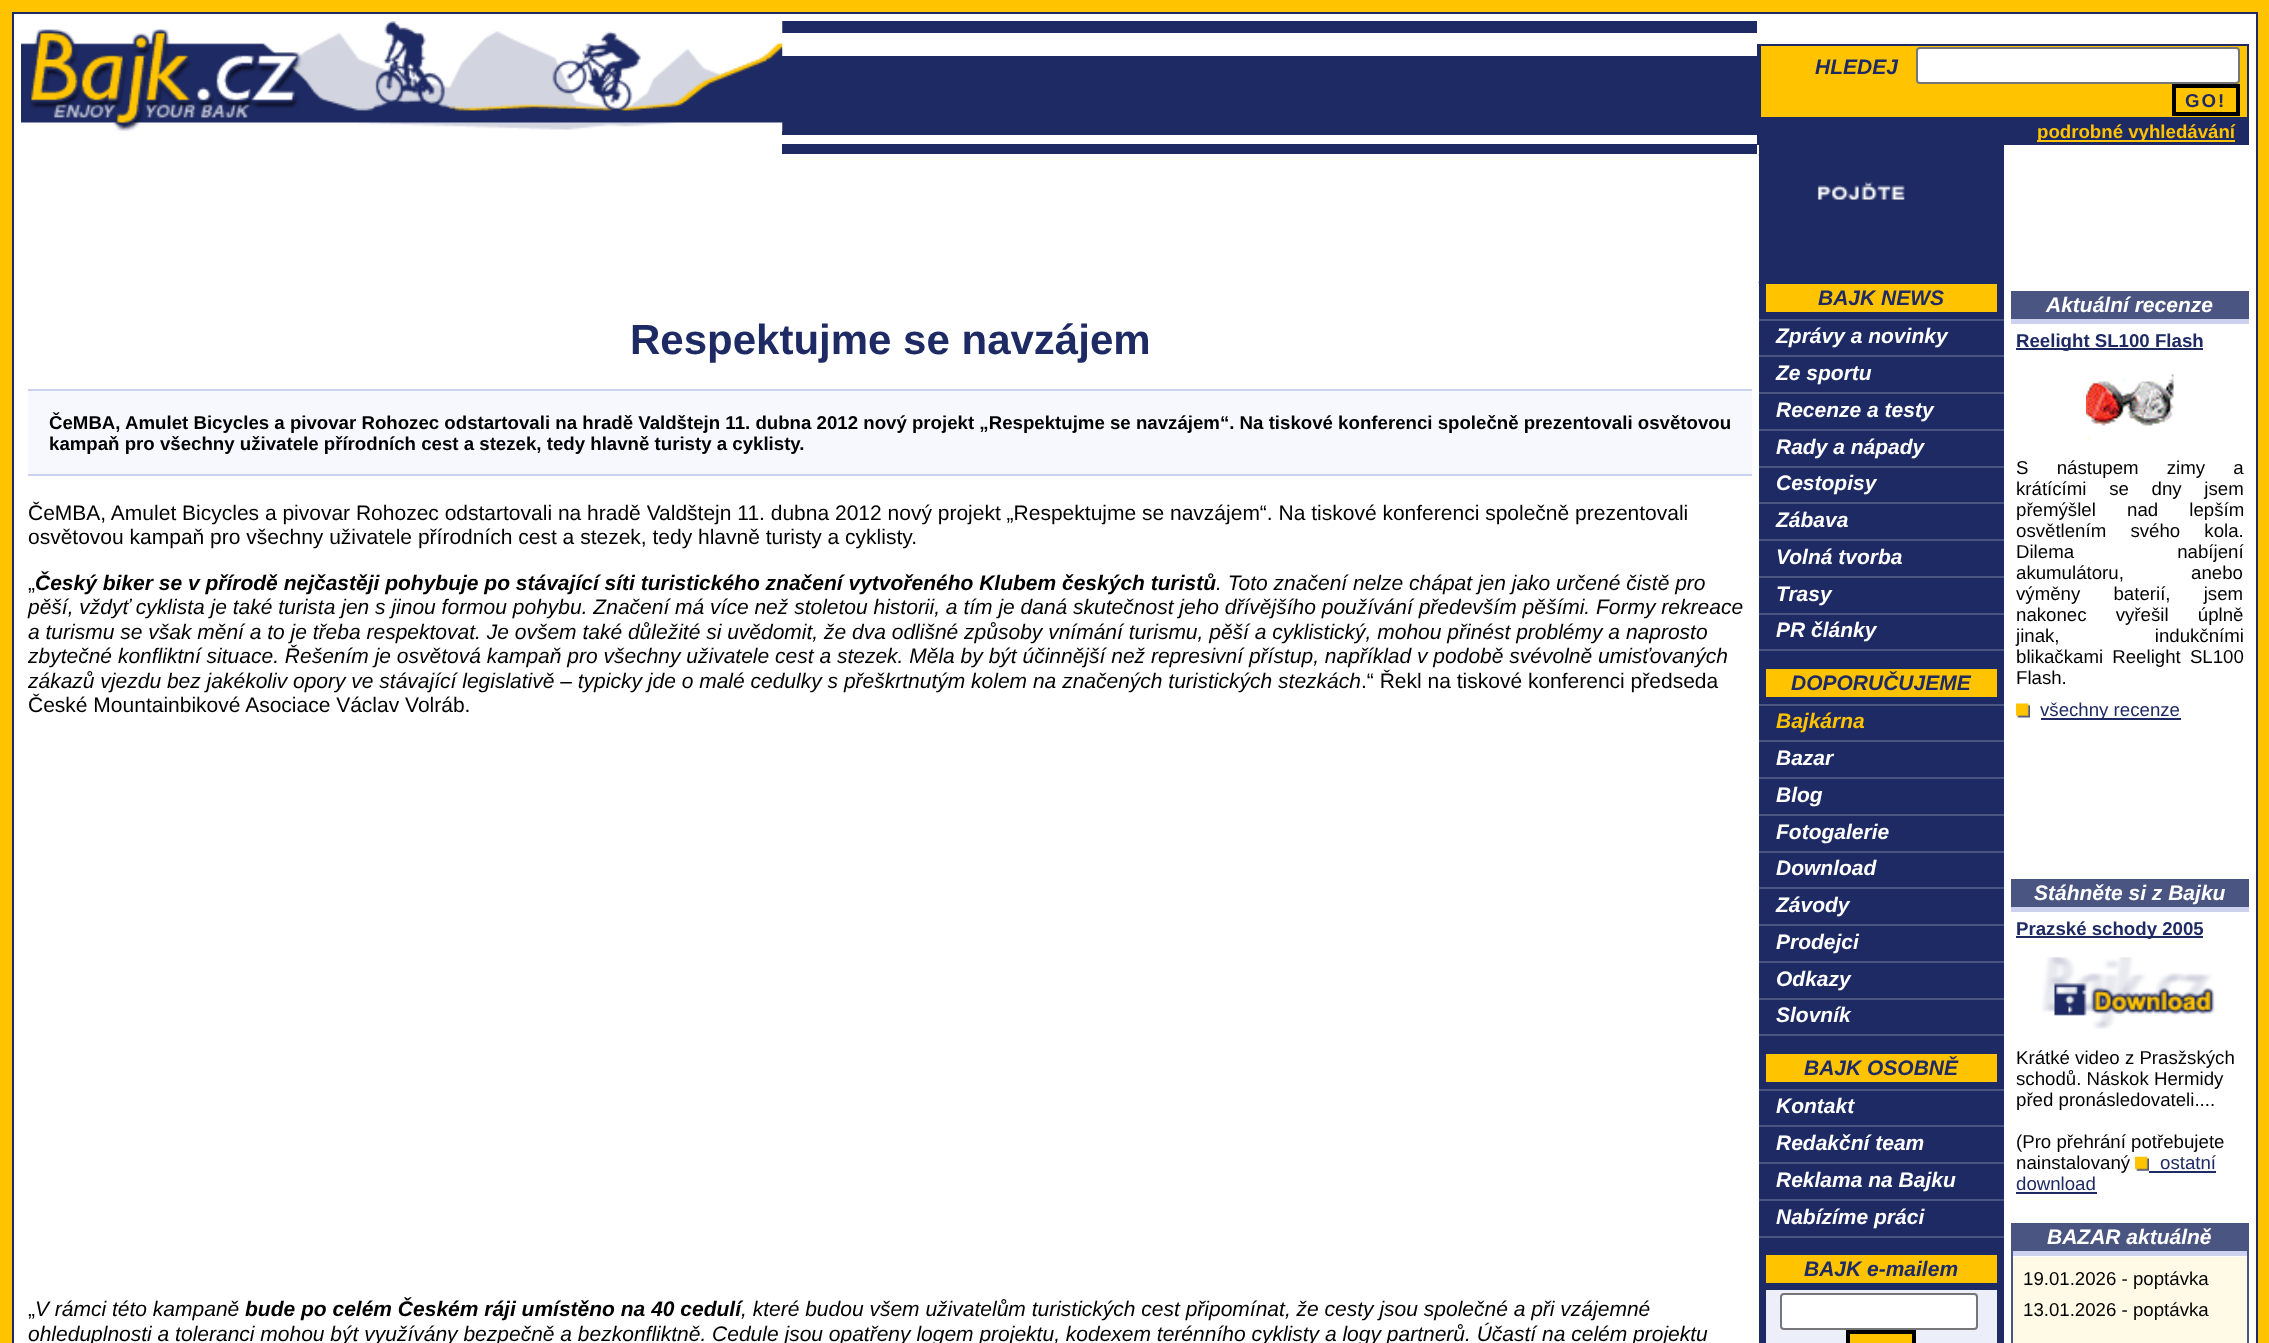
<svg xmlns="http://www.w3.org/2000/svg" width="2269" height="1343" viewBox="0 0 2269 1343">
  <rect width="100%" height="100%" fill="#ffc300"/>
  <path d="M14 14h2242v1329H14z" fill="#fff"/>
  <path d="M12 12h2v1331H12z" fill="#1e2a63"/>
  <path d="M14 12h2242v2H14z" fill="#1e2a63"/>
  <path d="M2256 12h2v1331H2256z" fill="#1e2a63"/>
  <path d="M782 21h975v133H782z" fill="#1e2a63"/>
  <path d="M782 33h975v23H782z" fill="#fff"/>
  <image x="21" y="21" width="762" height="111" href="img/1.png"/>
  <path d="M782 135h975v9H782z" fill="#fff"/>
  <path d="M1757 44h492v101H1757z" fill="#1e2a63"/>
  <path d="M1761 46h486v71H1761z" fill="#ffc300"/>
  <rect x="1917" y="48" width="322" height="35" rx="3" fill="#fff" stroke="#767676" stroke-width="2"/>
  <path d="M2174 86h64v28H2174z" fill="none" stroke="#000" stroke-width="4"/>
  <path d="M2037 140h198v2H2037z" fill="#ffc300"/>
  <path d="M1759 145h245v1198H1759z" fill="#1e2a63"/>
  <image x="1758" y="154" width="1" height="2" href="img/2.png"/>
  <image x="1817" y="181" width="88" height="19" href="img/3.png"/>
  <image x="1758" y="281" width="1" height="3" href="img/4.png"/>
  <path d="M28 391h1724v83H28z" fill="#f7f8fd"/>
  <path d="M28 389h1724v2H28z" fill="#cbd1ef"/>
  <path d="M28 474h1724v2H28z" fill="#cbd1ef"/>
  <path d="M1766 284h231v28H1766z" fill="#ffc300"/>
  <path d="M1759 319h245v2H1759z" fill="#4b5582"/>
  <path d="M1759 355h245v2H1759z" fill="#4b5582"/>
  <path d="M1759 392h245v2H1759z" fill="#4b5582"/>
  <path d="M1759 429h245v2H1759z" fill="#4b5582"/>
  <path d="M1759 466h245v2H1759z" fill="#4b5582"/>
  <path d="M1759 502h245v2H1759z" fill="#4b5582"/>
  <path d="M1759 539h245v2H1759z" fill="#4b5582"/>
  <path d="M1759 576h245v2H1759z" fill="#4b5582"/>
  <path d="M1759 613h245v2H1759z" fill="#4b5582"/>
  <path d="M1759 649h245v2H1759z" fill="#4b5582"/>
  <path d="M1766 669h231v28H1766z" fill="#ffc300"/>
  <path d="M1759 704h245v2H1759z" fill="#4b5582"/>
  <path d="M1759 740h245v2H1759z" fill="#4b5582"/>
  <path d="M1759 777h245v2H1759z" fill="#4b5582"/>
  <path d="M1759 814h245v2H1759z" fill="#4b5582"/>
  <path d="M1759 851h245v2H1759z" fill="#4b5582"/>
  <path d="M1759 887h245v2H1759z" fill="#4b5582"/>
  <path d="M1759 924h245v2H1759z" fill="#4b5582"/>
  <path d="M1759 961h245v2H1759z" fill="#4b5582"/>
  <path d="M1759 998h245v2H1759z" fill="#4b5582"/>
  <path d="M1759 1034h245v2H1759z" fill="#4b5582"/>
  <path d="M1766 1054h231v28H1766z" fill="#ffc300"/>
  <path d="M1759 1089h245v2H1759z" fill="#4b5582"/>
  <path d="M1759 1125h245v2H1759z" fill="#4b5582"/>
  <path d="M1759 1162h245v2H1759z" fill="#4b5582"/>
  <path d="M1759 1199h245v2H1759z" fill="#4b5582"/>
  <path d="M1759 1236h245v2H1759z" fill="#4b5582"/>
  <path d="M1766 1255h231v28H1766z" fill="#ffc300"/>
  <path d="M1766 1290h231v53H1766z" fill="#eceef9"/>
  <rect x="1781" y="1294" width="196" height="35" rx="3" fill="#fff" stroke="#767676" stroke-width="2"/>
  <path d="M1848 1332h66v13H1848z" fill="#ffc300" stroke="#000" stroke-width="4"/>
  <path d="M2011 291h238v28H2011z" fill="#4b5582"/>
  <path d="M2011 319h238v5H2011z" fill="#cbd1ef"/>
  <path d="M2016 348h187v2H2016z" fill="#1e2a63"/>
  <image x="2086" y="374" width="88" height="66" href="img/5.png"/>
  <image x="2016" y="703" width="14" height="15" href="img/6.png"/>
  <path d="M2041 718h140v2H2041z" fill="#1e2a63"/>
  <path d="M2011 879h238v28H2011z" fill="#4b5582"/>
  <path d="M2011 907h238v5H2011z" fill="#cbd1ef"/>
  <path d="M2016 936h187v2H2016z" fill="#1e2a63"/>
  <image x="2042" y="957" width="173" height="72" href="img/7.png"/>
  <image x="2135" y="1156" width="14" height="15" href="img/8.png"/>
  <path d="M2149 1171h67v2H2149z" fill="#1e2a63"/>
  <path d="M2016 1192h81v2H2016z" fill="#1e2a63"/>
  <path d="M2247 1223h2v120H2247z" fill="#4b5582"/>
  <path d="M2011 1223h2v120H2011z" fill="#4b5582"/>
  <path d="M2013 1223h234v28H2013z" fill="#4b5582"/>
  <path d="M2013 1251h234v5H2013z" fill="#cbd1ef"/>
  <path d="M2013 1257h234v86H2013z" fill="#fffae6"/>
  <text x="1815" y="74" font-family="Liberation Sans" font-size="21" font-weight="bold" font-style="italic" fill="#1e2a63">HLEDEJ</text>
  <text x="2185" y="107" font-family="Liberation Sans" font-size="18.67" font-weight="bold" letter-spacing="2" fill="#1e2a63">GO!</text>
  <text x="2037" y="138" font-family="Liberation Sans" font-size="18.67" font-weight="bold" fill="#ffc300">podrobné vyhledávání</text>
  <text x="630" y="354" font-family="Liberation Sans" font-size="42" font-weight="bold" fill="#1e2a63">Respektujme se navzájem</text>
  <g font-family="Liberation Sans" font-size="18.67" font-weight="bold" fill="#000">
    <text x="49" y="429">ČeMBA, Amulet Bicycles a pivovar Rohozec odstartovali na hradě Valdštejn 11. dubna 2012 nový projekt „Respektujme se navzájem“. Na tiskové konferenci společně prezentovali osvětovou</text>
    <text x="49" y="450">kampaň pro všechny uživatele přírodních cest a stezek, tedy hlavně turisty a cyklisty.</text>
  </g>
  <g font-family="Liberation Sans" font-size="21" fill="#000">
    <text x="28" y="520">ČeMBA, Amulet Bicycles a pivovar Rohozec odstartovali na hradě Valdštejn 11. dubna 2012 nový projekt „Respektujme se navzájem“. Na tiskové konferenci společně prezentovali</text>
    <text x="28" y="544">osvětovou kampaň pro všechny uživatele přírodních cest a stezek, tedy hlavně turisty a cyklisty.</text>
    <text x="28" y="590">„</text>
  </g>
  <text x="35" y="590" font-family="Liberation Sans" font-size="21" font-weight="bold" font-style="italic" fill="#000">Český biker se v přírodě nejčastěji pohybuje po stávající síti turistického značení vytvořeného Klubem českých turistů</text>
  <g font-family="Liberation Sans" font-size="21" font-style="italic" fill="#000">
    <text x="1216" y="590">. Toto značení nelze chápat jen jako určené čistě pro</text>
    <text x="28" y="614">pěší, vždyť cyklista je také turista jen s jinou formou pohybu. Značení má více než stoletou historii, a tím je daná skutečnost jeho dřívějšího používání především pěšími. Formy rekreace</text>
    <text x="28" y="639">a turismu se však mění a to je třeba respektovat. Je ovšem také důležité si uvědomit, že dva odlišné způsoby vnímání turismu, pěší a cyklistický, mohou přinést problémy a naprosto</text>
    <text x="28" y="663">zbytečné konﬂiktní situace. Řešením je osvětová kampaň pro všechny uživatele cest a stezek. Měla by být účinnější než represivní přístup, například v podobě svévolně umisťovaných</text>
    <text x="28" y="688">zákazů vjezdu bez jakékoliv opory ve stávající legislativě – typicky jde o malé cedulky s přeškrtnutým kolem na značených turistických stezkách</text>
  </g>
  <g font-family="Liberation Sans" font-size="21" fill="#000">
    <text x="1361" y="688">.“ Řekl na tiskové konferenci předseda</text>
    <text x="28" y="712">České Mountainbikové Asociace Václav Volráb.</text>
    <text x="28" y="1316">„</text>
  </g>
  <text x="35" y="1316" font-family="Liberation Sans" font-size="21" font-style="italic" fill="#000">V rámci této kampaně</text>
  <text x="245" y="1316" font-family="Liberation Sans" font-size="21" font-weight="bold" font-style="italic" fill="#000">bude po celém Českém ráji umístěno na 40 cedulí</text>
  <g font-family="Liberation Sans" font-size="21" font-style="italic" fill="#000">
    <text x="741" y="1316">, které budou všem uživatelům turistických cest připomínat, že cesty jsou společné a při vzájemné</text>
    <text x="28" y="1341">ohleduplnosti a toleranci mohou být využívány bezpečně a bezkonfliktně. Cedule jsou opatřeny logem projektu, kodexem terénního cyklisty a logy partnerů. Účastí na celém projektu</text>
  </g>
  <text x="1818" y="305" font-family="Liberation Sans" font-size="21" font-weight="bold" font-style="italic" fill="#1e2a63">BAJK NEWS</text>
  <g font-family="Liberation Sans" font-size="21" font-weight="bold" font-style="italic" fill="#fff">
    <text x="1776" y="343">Zprávy a novinky</text>
    <text x="1776" y="380">Ze sportu</text>
    <text x="1776" y="417">Recenze a testy</text>
    <text x="1776" y="454">Rady a nápady</text>
    <text x="1776" y="490">Cestopisy</text>
    <text x="1776" y="527">Zábava</text>
    <text x="1776" y="564">Volná tvorba</text>
    <text x="1776" y="601">Trasy</text>
    <text x="1776" y="637">PR články</text>
  </g>
  <text x="1791" y="690" font-family="Liberation Sans" font-size="21" font-weight="bold" font-style="italic" fill="#1e2a63">DOPORUČUJEME</text>
  <text x="1776" y="728" font-family="Liberation Sans" font-size="21" font-weight="bold" font-style="italic" fill="#ffc300">Bajkárna</text>
  <g font-family="Liberation Sans" font-size="21" font-weight="bold" font-style="italic" fill="#fff">
    <text x="1776" y="765">Bazar</text>
    <text x="1776" y="802">Blog</text>
    <text x="1776" y="839">Fotogalerie</text>
    <text x="1776" y="875">Download</text>
    <text x="1776" y="912">Závody</text>
    <text x="1776" y="949">Prodejci</text>
    <text x="1776" y="986">Odkazy</text>
    <text x="1776" y="1022">Slovník</text>
  </g>
  <text x="1804" y="1075" font-family="Liberation Sans" font-size="21" font-weight="bold" font-style="italic" fill="#1e2a63">BAJK OSOBNĚ</text>
  <g font-family="Liberation Sans" font-size="21" font-weight="bold" font-style="italic" fill="#fff">
    <text x="1776" y="1113">Kontakt</text>
    <text x="1776" y="1150">Redakční team</text>
    <text x="1776" y="1187">Reklama na Bajku</text>
    <text x="1776" y="1224">Nabízíme práci</text>
  </g>
  <text x="1804" y="1276" font-family="Liberation Sans" font-size="21" font-weight="bold" font-style="italic" fill="#1e2a63">BAJK e-mailem</text>
  <text x="2046" y="312" font-family="Liberation Sans" font-size="21" font-weight="bold" font-style="italic" fill="#fff">Aktuální recenze</text>
  <text x="2016" y="347" font-family="Liberation Sans" font-size="18.67" font-weight="bold" fill="#1e2a63">Reelight SL100 Flash</text>
  <g font-family="Liberation Sans" font-size="18.67" fill="#000">
    <text x="2016" y="474" word-spacing="23">S nástupem zimy a</text>
    <text x="2016" y="495" word-spacing="17.5">krátícími se dny jsem</text>
    <text x="2016" y="516" word-spacing="26">přemýšlel nad lepším</text>
    <text x="2016" y="537" word-spacing="19">osvětlením svého kola.</text>
    <text x="2016" y="558" word-spacing="98">Dilema nabíjení</text>
    <text x="2016" y="579" word-spacing="62">akumulátoru, anebo</text>
    <text x="2016" y="600" word-spacing="28">výměny baterií, jsem</text>
    <text x="2016" y="621" word-spacing="24">nakonec vyřešil úplně</text>
    <text x="2016" y="642" word-spacing="90">jinak, indukčními</text>
    <text x="2016" y="663" word-spacing="4">blikačkami Reelight SL100</text>
    <text x="2016" y="684">Flash.</text>
  </g>
  <text x="2040" y="716" font-family="Liberation Sans" font-size="18.67" fill="#1e2a63">všechny recenze</text>
  <text x="2034" y="900" font-family="Liberation Sans" font-size="21" font-weight="bold" font-style="italic" fill="#fff">Stáhněte si z Bajku</text>
  <text x="2016" y="935" font-family="Liberation Sans" font-size="18.67" font-weight="bold" fill="#1e2a63">Prazské schody 2005</text>
  <g font-family="Liberation Sans" font-size="18.67" fill="#000">
    <text x="2016" y="1064">Krátké video z Prasžských</text>
    <text x="2016" y="1085">schodů. Náskok Hermidy</text>
    <text x="2016" y="1106">před pronásledovateli....</text>
    <text x="2016" y="1148">(Pro přehrání potřebujete</text>
    <text x="2016" y="1169">nainstalovaný</text>
  </g>
  <g font-family="Liberation Sans" font-size="18.67" fill="#1e2a63">
    <text x="2160" y="1169">ostatní</text>
    <text x="2016" y="1190">download</text>
  </g>
  <text x="2047" y="1244" font-family="Liberation Sans" font-size="21" font-weight="bold" font-style="italic" fill="#fff">BAZAR aktuálně</text>
  <g font-family="Liberation Sans" font-size="18.67" fill="#000">
    <text x="2023" y="1285">19.01.2026 - poptávka</text>
    <text x="2023" y="1316">13.01.2026 - poptávka</text>
  </g>
</svg>
